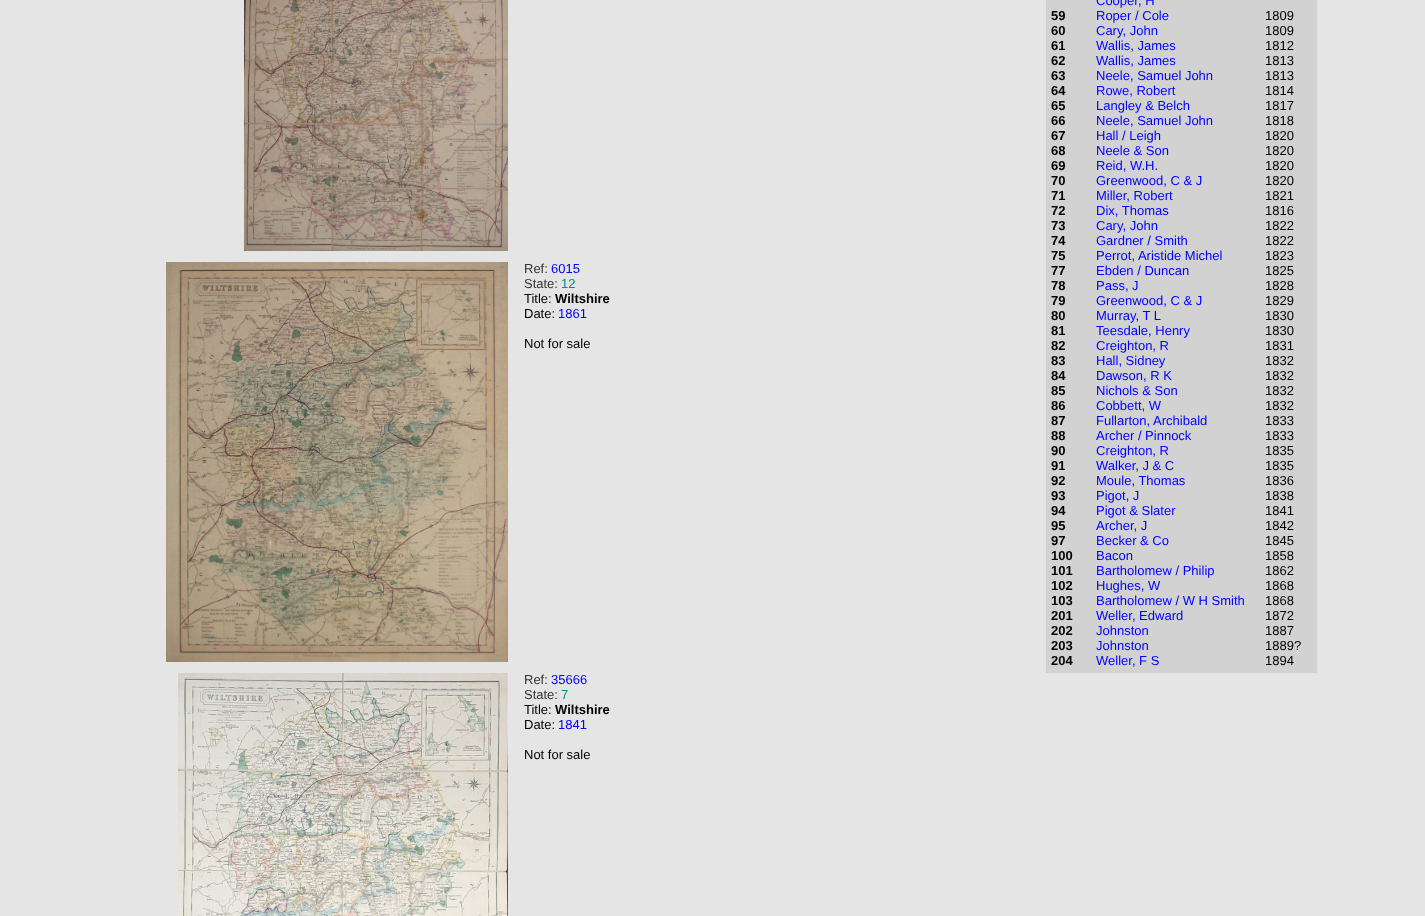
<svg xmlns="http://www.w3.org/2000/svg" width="1425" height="916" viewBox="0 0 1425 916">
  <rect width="100%" height="100%" fill="#e5e5e5"/>
  <image x="244" y="0" width="264" height="251" href="img/1.png"/>
  <image x="166" y="262" width="342" height="400" href="img/2.png"/>
  <image x="178" y="673" width="330" height="243" href="img/3.png"/>
  <path d="M1046 0h271v673H1046z" fill="#d2d2d2"/>
  <text x="524" y="273" font-family="Liberation Sans" font-size="13" fill="#333">Ref:</text>
  <text x="551" y="273" font-family="Liberation Sans" font-size="13" fill="#00f">6015</text>
  <text x="524" y="288" font-family="Liberation Sans" font-size="13" fill="#333">State:</text>
  <text x="561" y="288" font-family="Liberation Sans" font-size="13" fill="#008b8b">12</text>
  <text x="524" y="303" font-family="Liberation Sans" font-size="13" fill="#000">Title:</text>
  <text x="555" y="303" font-family="Liberation Sans" font-size="13" font-weight="bold" fill="#000">Wiltshire</text>
  <text x="524" y="318" font-family="Liberation Sans" font-size="13" fill="#000">Date:</text>
  <text x="558" y="318" font-family="Liberation Sans" font-size="13" fill="#00f">1861</text>
  <text x="524" y="348" font-family="Liberation Sans" font-size="13" fill="#000">Not for sale</text>
  <text x="524" y="684" font-family="Liberation Sans" font-size="13" fill="#333">Ref:</text>
  <text x="551" y="684" font-family="Liberation Sans" font-size="13" fill="#00f">35666</text>
  <text x="524" y="699" font-family="Liberation Sans" font-size="13" fill="#333">State:</text>
  <text x="561" y="699" font-family="Liberation Sans" font-size="13" fill="#008b8b">7</text>
  <text x="524" y="714" font-family="Liberation Sans" font-size="13" fill="#000">Title:</text>
  <text x="555" y="714" font-family="Liberation Sans" font-size="13" font-weight="bold" fill="#000">Wiltshire</text>
  <text x="524" y="729" font-family="Liberation Sans" font-size="13" fill="#000">Date:</text>
  <text x="558" y="729" font-family="Liberation Sans" font-size="13" fill="#00f">1841</text>
  <text x="524" y="759" font-family="Liberation Sans" font-size="13" fill="#000">Not for sale</text>
  <g font-family="Liberation Sans" font-size="13" font-weight="bold" fill="#000">
    <text x="1051" y="20">59</text>
    <text x="1051" y="35">60</text>
    <text x="1051" y="50">61</text>
    <text x="1051" y="65">62</text>
    <text x="1051" y="80">63</text>
    <text x="1051" y="95">64</text>
    <text x="1051" y="110">65</text>
    <text x="1051" y="125">66</text>
    <text x="1051" y="140">67</text>
    <text x="1051" y="155">68</text>
    <text x="1051" y="170">69</text>
    <text x="1051" y="185">70</text>
    <text x="1051" y="200">71</text>
    <text x="1051" y="215">72</text>
    <text x="1051" y="230">73</text>
    <text x="1051" y="245">74</text>
    <text x="1051" y="260">75</text>
    <text x="1051" y="275">77</text>
    <text x="1051" y="290">78</text>
    <text x="1051" y="305">79</text>
    <text x="1051" y="320">80</text>
    <text x="1051" y="335">81</text>
    <text x="1051" y="350">82</text>
    <text x="1051" y="365">83</text>
    <text x="1051" y="380">84</text>
    <text x="1051" y="395">85</text>
    <text x="1051" y="410">86</text>
    <text x="1051" y="425">87</text>
    <text x="1051" y="440">88</text>
    <text x="1051" y="455">90</text>
    <text x="1051" y="470">91</text>
    <text x="1051" y="485">92</text>
    <text x="1051" y="500">93</text>
    <text x="1051" y="515">94</text>
    <text x="1051" y="530">95</text>
    <text x="1051" y="545">97</text>
    <text x="1051" y="560">100</text>
    <text x="1051" y="575">101</text>
    <text x="1051" y="590">102</text>
    <text x="1051" y="605">103</text>
    <text x="1051" y="620">201</text>
    <text x="1051" y="635">202</text>
    <text x="1051" y="650">203</text>
    <text x="1051" y="665">204</text>
  </g>
  <g font-family="Liberation Sans" font-size="13" fill="#00f">
    <text x="1096" y="5">Cooper, H</text>
    <text x="1096" y="20">Roper / Cole</text>
    <text x="1096" y="35">Cary, John</text>
    <text x="1096" y="50">Wallis, James</text>
    <text x="1096" y="65">Wallis, James</text>
    <text x="1096" y="80">Neele, Samuel John</text>
    <text x="1096" y="95">Rowe, Robert</text>
    <text x="1096" y="110">Langley &amp; Belch</text>
    <text x="1096" y="125">Neele, Samuel John</text>
    <text x="1096" y="140">Hall / Leigh</text>
    <text x="1096" y="155">Neele &amp; Son</text>
    <text x="1096" y="170">Reid, W.H.</text>
    <text x="1096" y="185">Greenwood, C &amp; J</text>
    <text x="1096" y="200">Miller, Robert</text>
    <text x="1096" y="215">Dix, Thomas</text>
    <text x="1096" y="230">Cary, John</text>
    <text x="1096" y="245">Gardner / Smith</text>
    <text x="1096" y="260">Perrot, Aristide Michel</text>
    <text x="1096" y="275">Ebden / Duncan</text>
    <text x="1096" y="290">Pass, J</text>
    <text x="1096" y="305">Greenwood, C &amp; J</text>
    <text x="1096" y="320">Murray, T L</text>
    <text x="1096" y="335">Teesdale, Henry</text>
    <text x="1096" y="350">Creighton, R</text>
    <text x="1096" y="365">Hall, Sidney</text>
    <text x="1096" y="380">Dawson, R K</text>
    <text x="1096" y="395">Nichols &amp; Son</text>
    <text x="1096" y="410">Cobbett, W</text>
    <text x="1096" y="425">Fullarton, Archibald</text>
    <text x="1096" y="440">Archer / Pinnock</text>
    <text x="1096" y="455">Creighton, R</text>
    <text x="1096" y="470">Walker, J &amp; C</text>
    <text x="1096" y="485">Moule, Thomas</text>
    <text x="1096" y="500">Pigot, J</text>
    <text x="1096" y="515">Pigot &amp; Slater</text>
    <text x="1096" y="530">Archer, J</text>
    <text x="1096" y="545">Becker &amp; Co</text>
    <text x="1096" y="560">Bacon</text>
    <text x="1096" y="575">Bartholomew / Philip</text>
    <text x="1096" y="590">Hughes, W</text>
    <text x="1096" y="605">Bartholomew / W H Smith</text>
    <text x="1096" y="620">Weller, Edward</text>
    <text x="1096" y="635">Johnston</text>
    <text x="1096" y="650">Johnston</text>
    <text x="1096" y="665">Weller, F S</text>
  </g>
  <g font-family="Liberation Sans" font-size="13" fill="#000">
    <text x="1265" y="20">1809</text>
    <text x="1265" y="35">1809</text>
    <text x="1265" y="50">1812</text>
    <text x="1265" y="65">1813</text>
    <text x="1265" y="80">1813</text>
    <text x="1265" y="95">1814</text>
    <text x="1265" y="110">1817</text>
    <text x="1265" y="125">1818</text>
    <text x="1265" y="140">1820</text>
    <text x="1265" y="155">1820</text>
    <text x="1265" y="170">1820</text>
    <text x="1265" y="185">1820</text>
    <text x="1265" y="200">1821</text>
    <text x="1265" y="215">1816</text>
    <text x="1265" y="230">1822</text>
    <text x="1265" y="245">1822</text>
    <text x="1265" y="260">1823</text>
    <text x="1265" y="275">1825</text>
    <text x="1265" y="290">1828</text>
    <text x="1265" y="305">1829</text>
    <text x="1265" y="320">1830</text>
    <text x="1265" y="335">1830</text>
    <text x="1265" y="350">1831</text>
    <text x="1265" y="365">1832</text>
    <text x="1265" y="380">1832</text>
    <text x="1265" y="395">1832</text>
    <text x="1265" y="410">1832</text>
    <text x="1265" y="425">1833</text>
    <text x="1265" y="440">1833</text>
    <text x="1265" y="455">1835</text>
    <text x="1265" y="470">1835</text>
    <text x="1265" y="485">1836</text>
    <text x="1265" y="500">1838</text>
    <text x="1265" y="515">1841</text>
    <text x="1265" y="530">1842</text>
    <text x="1265" y="545">1845</text>
    <text x="1265" y="560">1858</text>
    <text x="1265" y="575">1862</text>
    <text x="1265" y="590">1868</text>
    <text x="1265" y="605">1868</text>
    <text x="1265" y="620">1872</text>
    <text x="1265" y="635">1887</text>
    <text x="1265" y="650">1889?</text>
    <text x="1265" y="665">1894</text>
  </g>
</svg>
